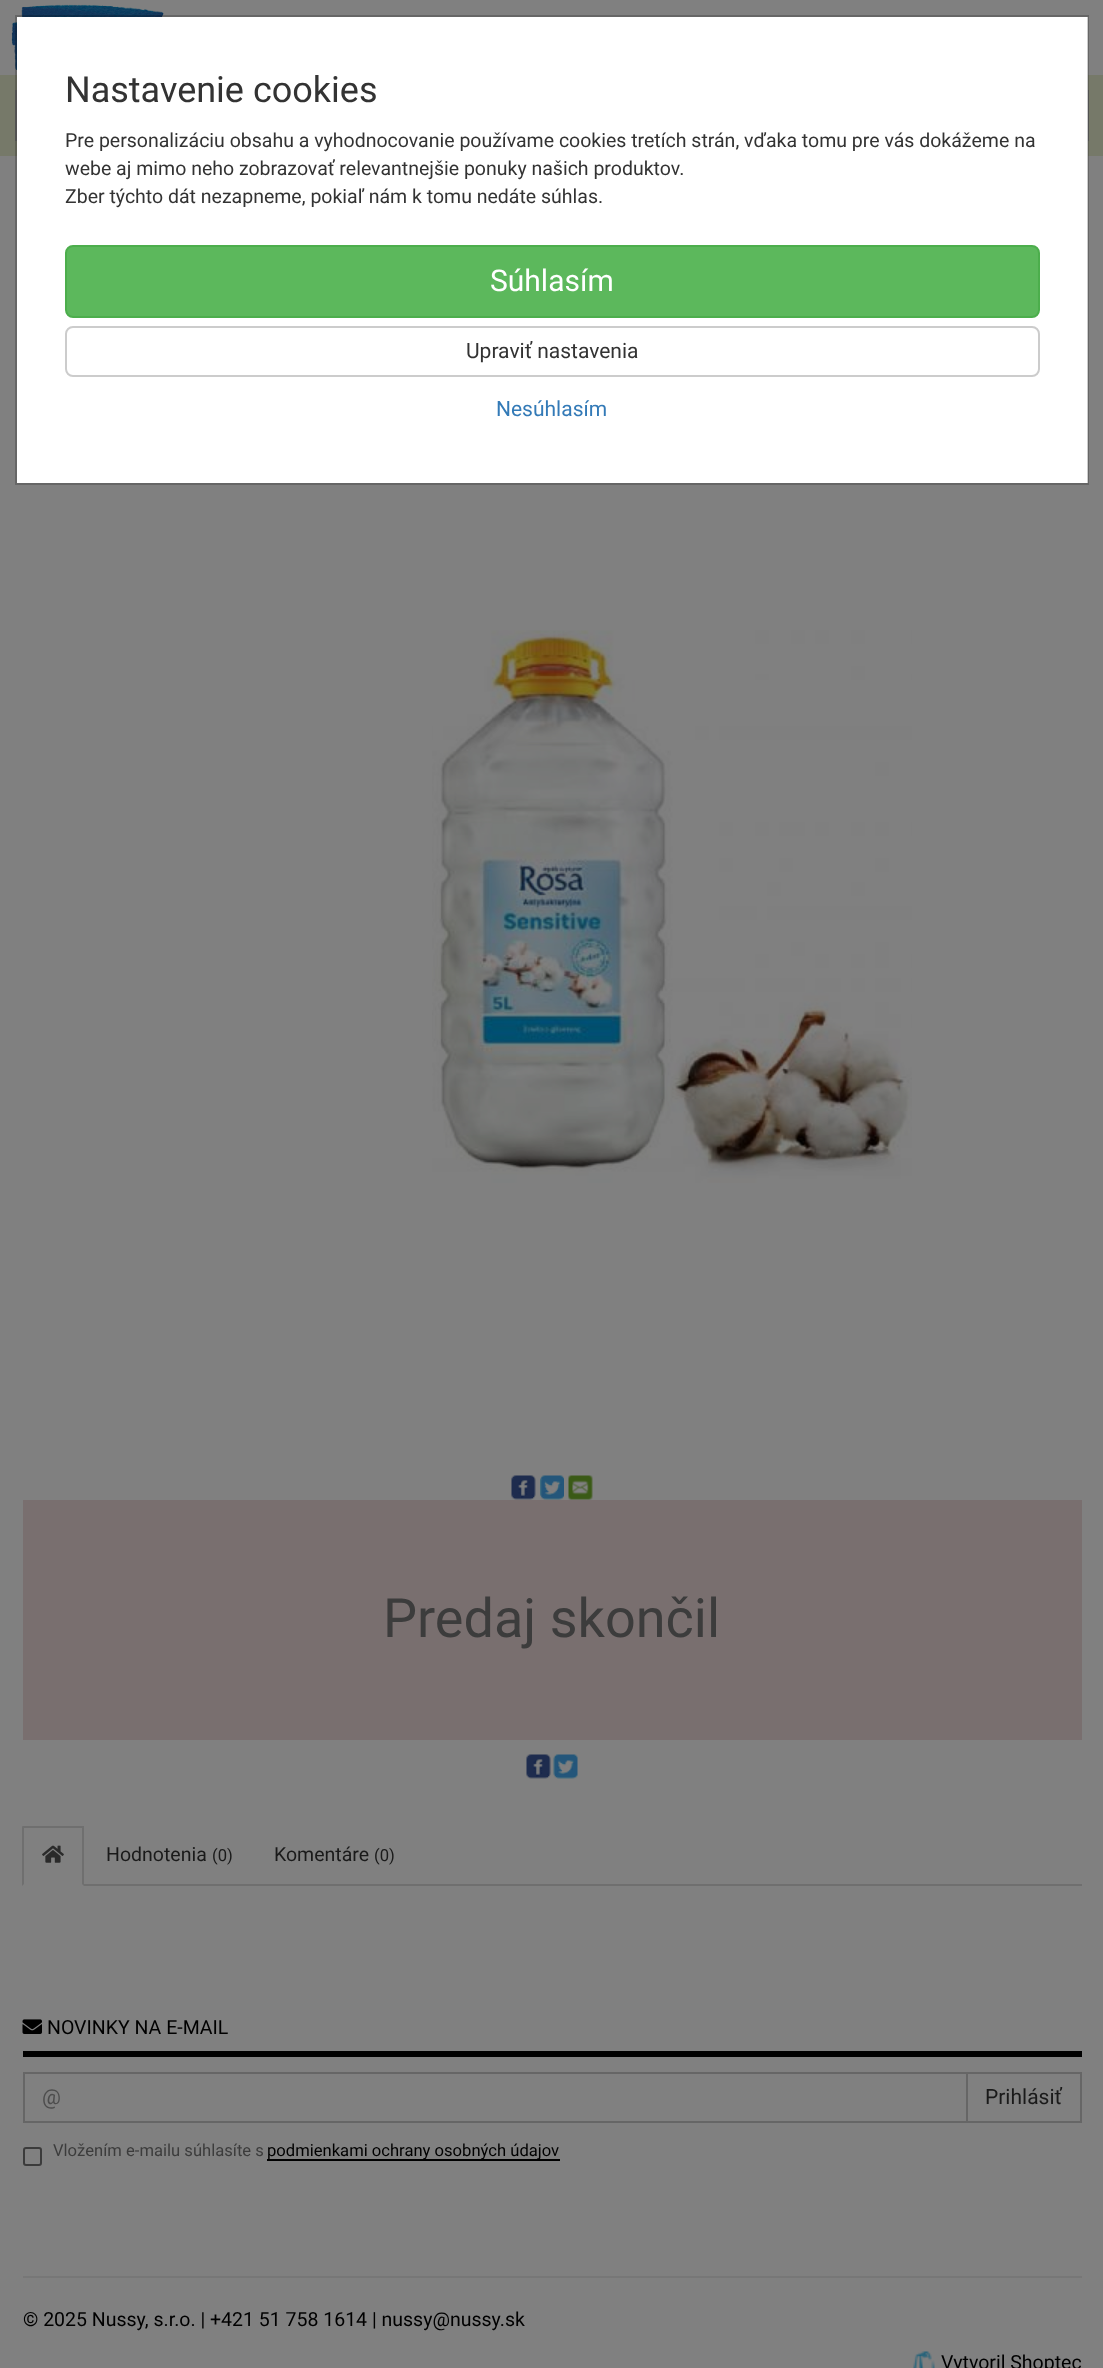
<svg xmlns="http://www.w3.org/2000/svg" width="1103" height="2368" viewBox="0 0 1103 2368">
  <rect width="100%" height="100%" fill="#808080"/>
  <image x="11" y="4" width="153" height="66" href="img/1.png"/>
  <path d="M0 75h1103v81H0z" fill="#767969"/>
  <path d="M16 91h912v49H16z" fill="none" stroke="#666" stroke-width="2"/>
  <path d="M930 91h158v49H930z" fill="none" stroke="#666" stroke-width="2"/>
  <path d="M17 17h1071v466H17z" fill="#fff"/>
  <path d="M16 16h1072v468H16z" fill="none" stroke="#00000033" stroke-width="2"/>
  <rect x="66" y="246" width="973" height="71" rx="7" fill="#5cb85c" stroke="#4cae4c" stroke-width="2"/>
  <rect x="66" y="327" width="973" height="49" rx="7" fill="none" stroke="#ccc" stroke-width="2"/>
  <image x="432" y="630" width="480" height="553" href="img/2.png"/>
  <image x="511" y="1475" width="25" height="25" href="img/3.png"/>
  <image x="540" y="1475" width="24" height="25" href="img/4.png"/>
  <image x="568" y="1475" width="25" height="25" href="img/5.png"/>
  <path d="M23 1500h1059v240H23z" fill="#796f6f"/>
  <image x="526" y="1754" width="25" height="25" href="img/6.png"/>
  <image x="553" y="1754" width="25" height="25" href="img/7.png"/>
  <path d="M84 1884h998v2H84z" fill="#6f6f6f"/>
  <path d="M23 1826h61v2H23z" fill="#6f6f6f"/>
  <path d="M84 1826V1886L82 1884V1827ZM22 1886V1826L24 1827V1884Z" fill="#6f6f6f"/>
  <image x="42" y="1845" width="22" height="18" href="img/8.png"/>
  <path d="M23 2051h1059v6H23z" fill="#000"/>
  <image x="22" y="2019" width="20" height="15" href="img/9.png"/>
  <path d="M24 2073h943v49H24z" fill="none" stroke="#666" stroke-width="2"/>
  <path d="M967 2073h114v49H967z" fill="none" stroke="#666" stroke-width="2"/>
  <rect x="24" y="2148" width="17" height="17" rx="2" fill="none" stroke="#3b3b3b" stroke-width="2"/>
  <path d="M267 2159h293v2H267z" fill="#000"/>
  <path d="M23 2276h1059v2H23z" fill="#777"/>
  <image x="913" y="2351" width="22" height="17" href="img/10.png"/>
  <text x="65" y="102" font-family="Roboto" font-size="36" fill="#333">Nastavenie cookies</text>
  <g font-family="Roboto" font-size="19.5" fill="#333">
    <text x="65" y="147">Pre personalizáciu obsahu a vyhodnocovanie používame cookies tretích strán, vďaka tomu pre vás dokážeme na</text>
    <text x="65" y="175">webe aj mimo neho zobrazovať relevantnejšie ponuky našich produktov.</text>
    <text x="65" y="203">Zber týchto dát nezapneme, pokiaľ nám k tomu nedáte súhlas.</text>
  </g>
  <text x="490" y="291" font-family="Roboto" font-size="30" fill="#fff">Súhlasím</text>
  <text x="466" y="358" font-family="Roboto" font-size="21" fill="#333">Upraviť nastavenia</text>
  <text x="496" y="416" font-family="Roboto" font-size="21" fill="#337ab7">Nesúhlasím</text>
  <text x="383" y="1637" font-family="Roboto" font-size="54" fill="#3c3c3c">Predaj skončil</text>
  <text x="106" y="1861" font-family="Roboto" font-size="19.5" fill="#1a1a1a">Hodnotenia</text>
  <text x="212" y="1861" font-family="Roboto" font-size="16.6" fill="#1a1a1a">(0)</text>
  <text x="274" y="1861" font-family="Roboto" font-size="19.5" fill="#1a1a1a">Komentáre</text>
  <text x="374" y="1861" font-family="Roboto" font-size="16.6" fill="#1a1a1a">(0)</text>
  <text x="47" y="2034" font-family="Roboto" font-size="19.5" fill="#000">NOVINKY NA E-MAIL</text>
  <text x="42" y="2104" font-family="Roboto" font-size="21" fill="#4d4d4d">@</text>
  <text x="985" y="2104" font-family="Roboto" font-size="21" fill="#1a1a1a">Prihlásiť</text>
  <text x="53" y="2156" font-family="Roboto" font-size="16.6" fill="#3c3c3c">Vložením e-mailu súhlasíte s</text>
  <text x="267" y="2156" font-family="Roboto" font-size="16.6" fill="#000">podmienkami ochrany osobných údajov</text>
  <g font-family="Roboto" font-size="19.5" fill="#000">
    <text x="23" y="2326">© 2025 Nussy, s.r.o. | +421 51 758 1614 | nussy@nussy.sk</text>
    <text x="941" y="2369">Vytvoril Shoptec</text>
  </g>
</svg>
